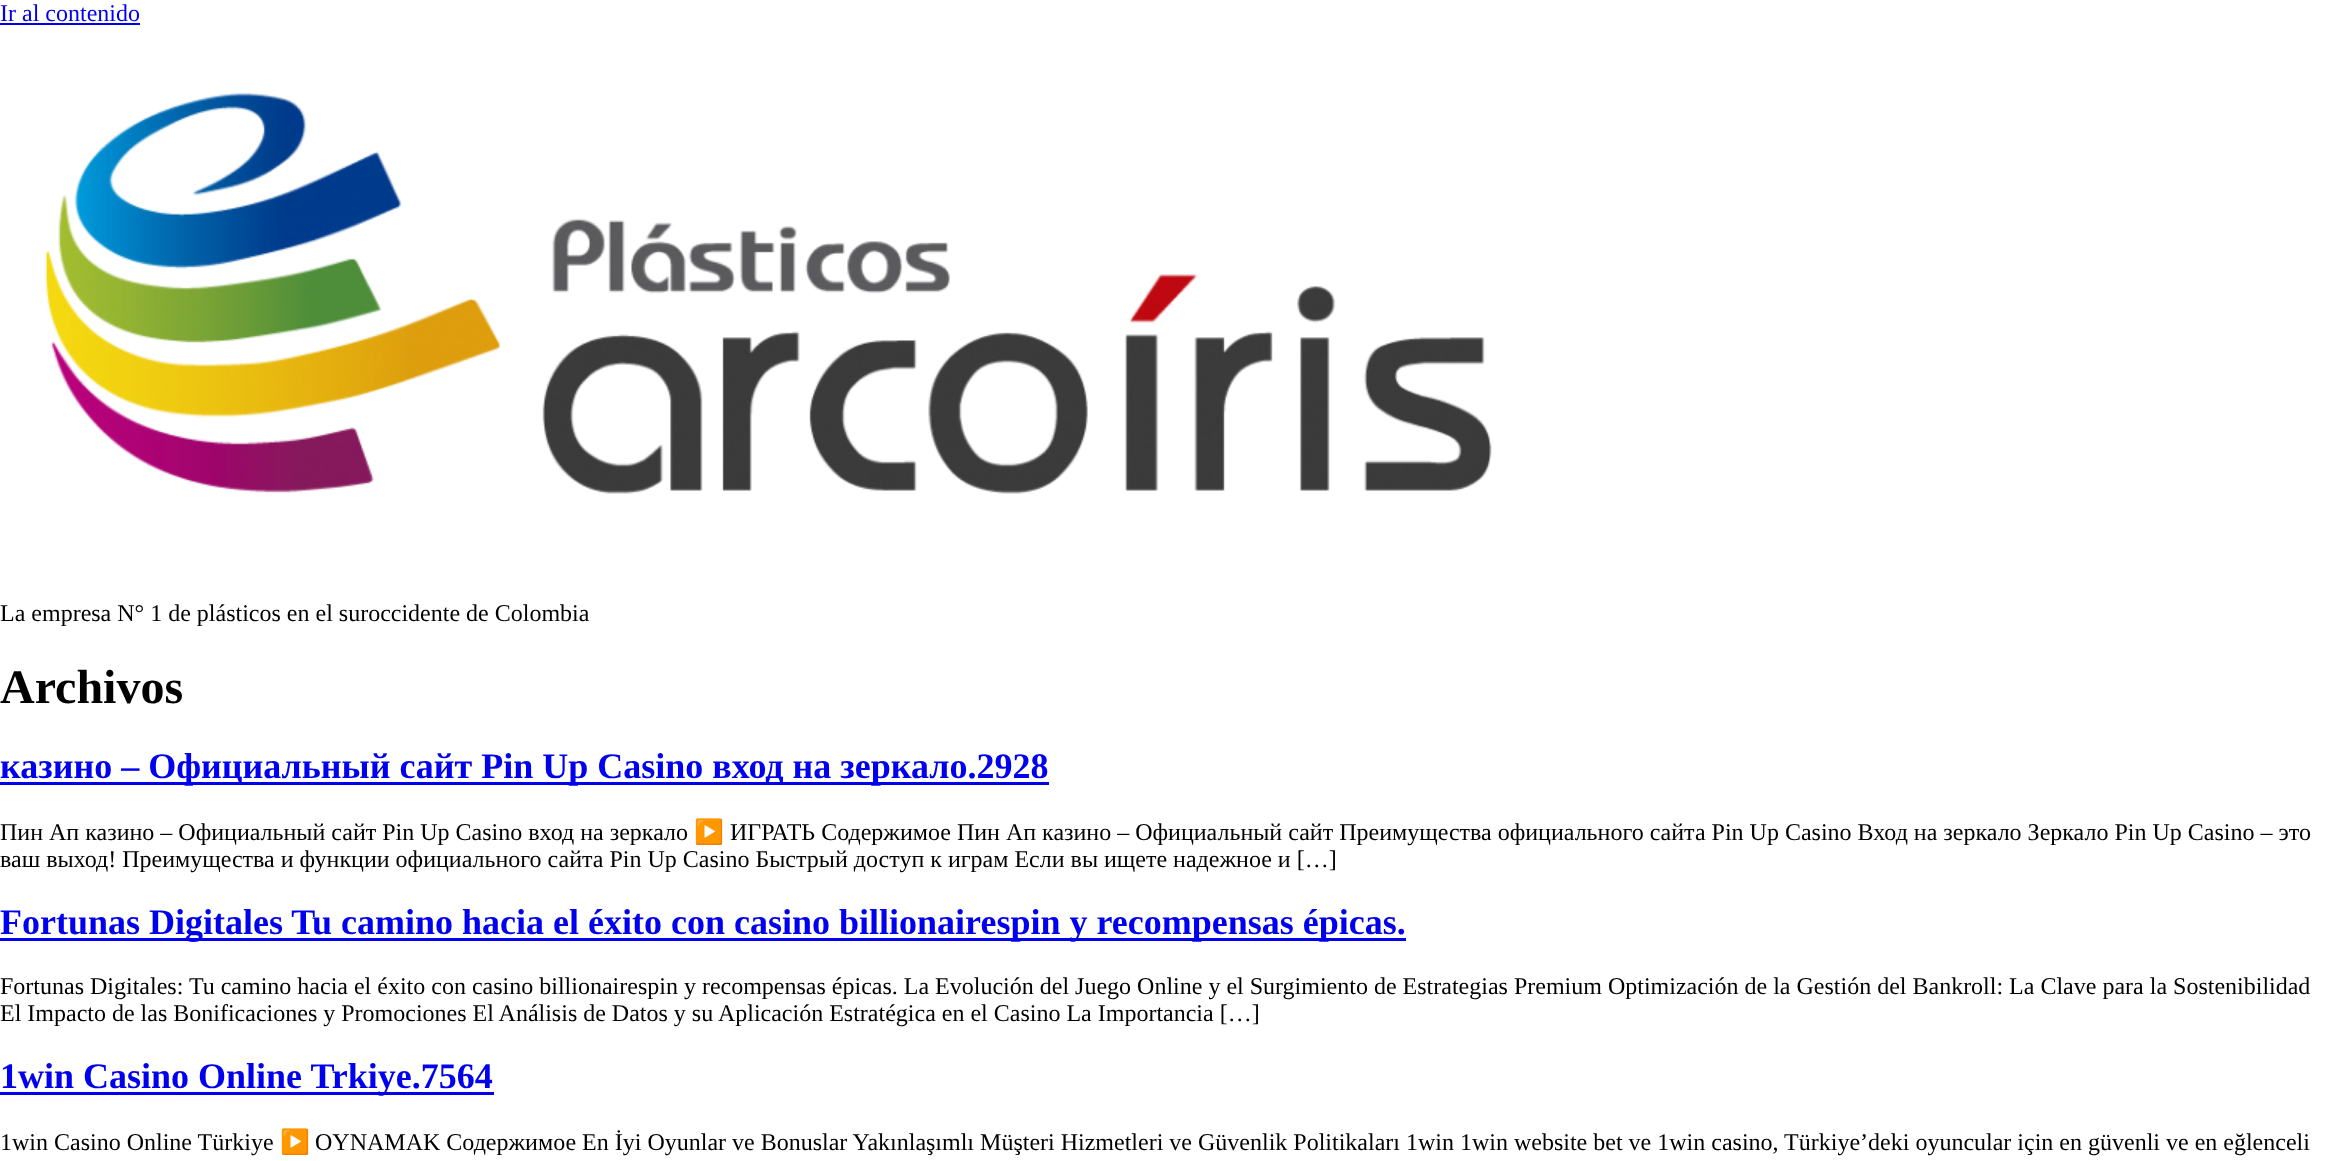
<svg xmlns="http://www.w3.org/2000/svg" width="2333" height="1161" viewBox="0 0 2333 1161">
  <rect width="100%" height="100%" fill="#fff"/>
  <path d="M0 23h140v2H0z" fill="#00e"/>
  <image x="45" y="92" width="1447" height="402" href="img/1.png"/>
  <path d="M0 782h1049v3H0z" fill="#00e"/>
  <path d="M0 938h1406v3H0z" fill="#00e"/>
  <path d="M0 1092h494v3H0z" fill="#00e"/>
  <text x="0" y="21" font-family="Liberation Serif" font-size="24" fill="#00e">Ir al contenido</text>
  <text x="0" y="621" font-family="Liberation Serif" font-size="24" fill="#000">La empresa N° 1 de plásticos en el suroccidente de Colombia</text>
  <text x="0" y="703" font-family="Liberation Serif" font-size="48" font-weight="bold" fill="#000">Archivos</text>
  <text x="0" y="778" font-family="Liberation Serif" font-size="36" font-weight="bold" fill="#00e">казино – Официальный сайт Pin Up Casino вход на зеркало.2928</text>
  <text x="0" y="840" font-family="Liberation Serif" font-size="24" fill="#000">Пин Ап казино – Официальный сайт Pin Up Casino вход на зеркало</text>
  <text x="694" y="840" font-family="Noto Color Emoji" font-size="24" fill="#000">▶️</text>
  <g font-family="Liberation Serif" font-size="24" fill="#000">
    <text x="730" y="840">ИГРАТЬ Содержимое Пин Ап казино – Официальный сайт Преимущества официального сайта Pin Up Casino Вход на зеркало Зеркало Pin Up Casino – это</text>
    <text x="0" y="867">ваш выход! Преимущества и функции официального сайта Pin Up Casino Быстрый доступ к играм Если вы ищете надежное и […]</text>
  </g>
  <text x="0" y="934" font-family="Liberation Serif" font-size="36" font-weight="bold" fill="#00e">Fortunas Digitales Tu camino hacia el éxito con casino billionairespin y recompensas épicas.</text>
  <g font-family="Liberation Serif" font-size="24" fill="#000">
    <text x="0" y="994">Fortunas Digitales: Tu camino hacia el éxito con casino billionairespin y recompensas épicas. La Evolución del Juego Online y el Surgimiento de Estrategias Premium Optimización de la Gestión del Bankroll: La Clave para la Sostenibilidad</text>
    <text x="0" y="1021">El Impacto de las Bonificaciones y Promociones El Análisis de Datos y su Aplicación Estratégica en el Casino La Importancia […]</text>
  </g>
  <text x="0" y="1088" font-family="Liberation Serif" font-size="36" font-weight="bold" fill="#00e">1win Casino Online Trkiye.7564</text>
  <text x="0" y="1150" font-family="Liberation Serif" font-size="24" fill="#000">1win Casino Online Türkiye</text>
  <text x="280" y="1150" font-family="Noto Color Emoji" font-size="24" fill="#000">▶️</text>
  <text x="315" y="1150" font-family="Liberation Serif" font-size="24" fill="#000">OYNAMAK Содержимое En İyi Oyunlar ve Bonuslar Yakınlaşımlı Müşteri Hizmetleri ve Güvenlik Politikaları 1win 1win website bet ve 1win casino, Türkiye’deki oyuncular için en güvenli ve en eğlenceli</text>
</svg>
